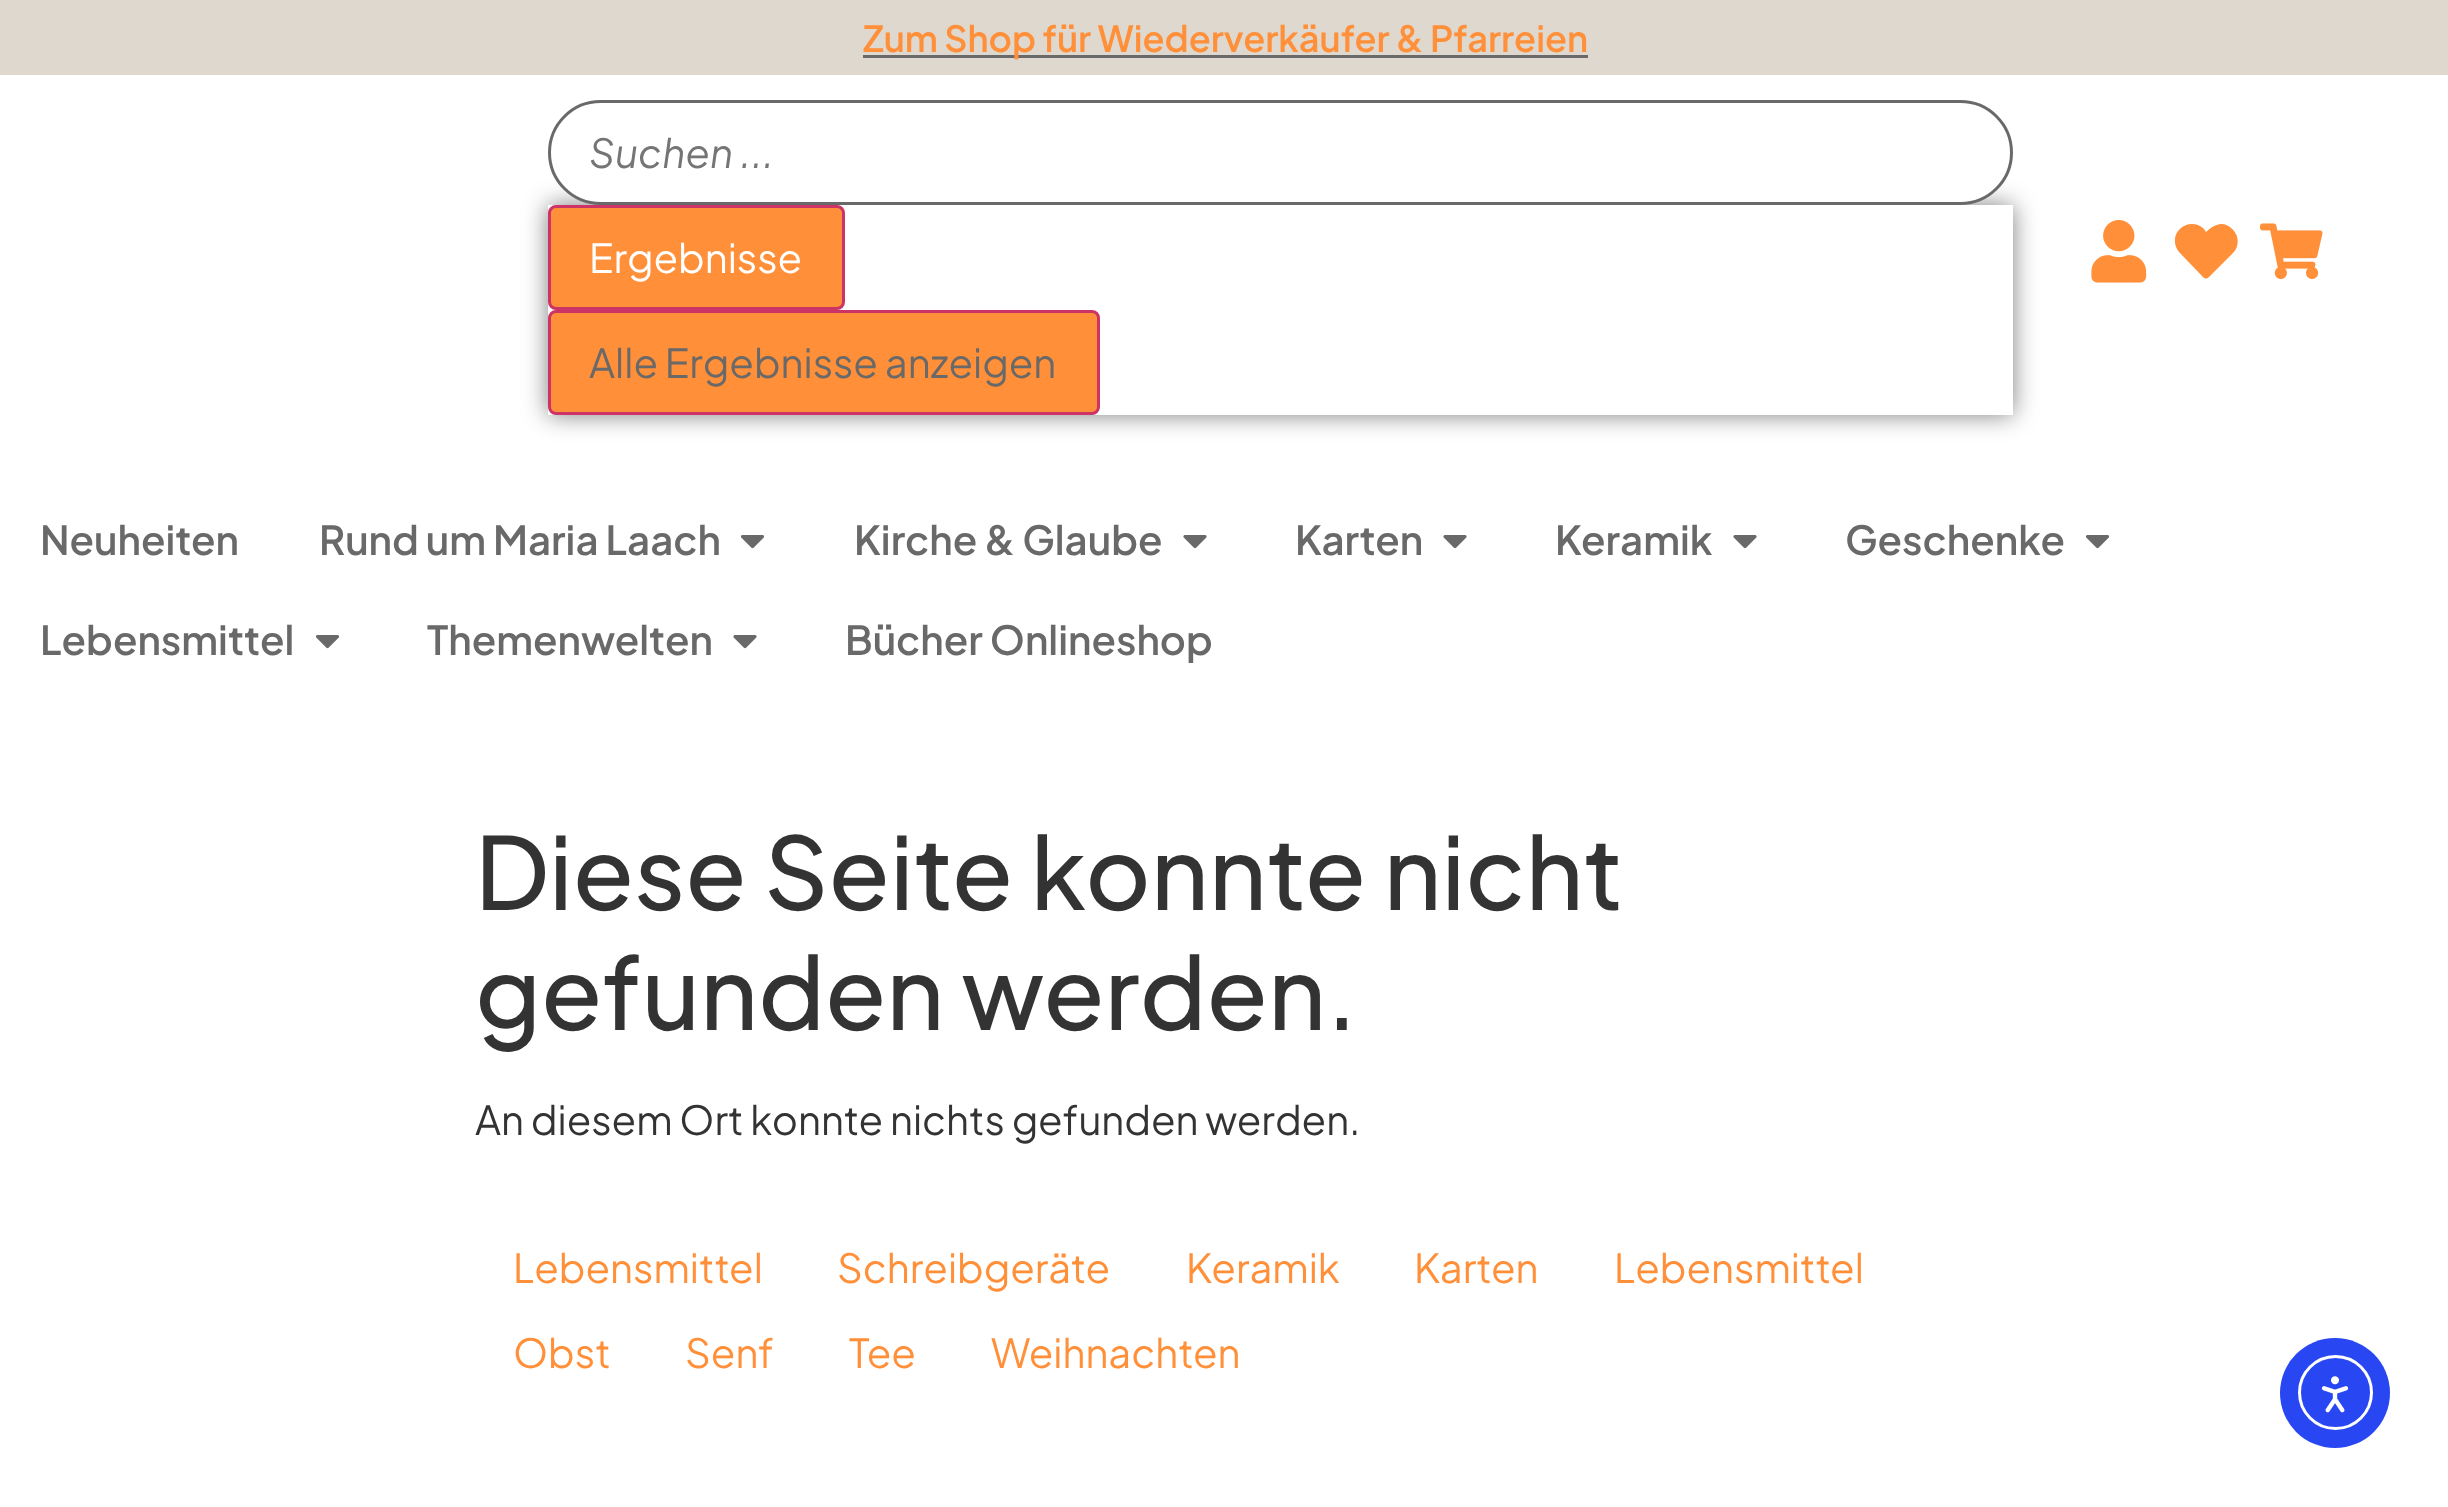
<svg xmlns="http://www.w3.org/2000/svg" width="2448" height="1507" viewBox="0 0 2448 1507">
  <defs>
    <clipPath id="clip1"><path d="M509 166H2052V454H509ZM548 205H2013V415H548Z" clip-rule="evenodd"/></clipPath>
    <clipPath id="clip2"><path d="M2175 220h63v63H2175z"/></clipPath>
  </defs>
  <rect width="100%" height="100%" fill="#fff"/>
  <path d="M0 0h2448v75H0z" fill="#ded8cf"/>
  <path d="M863 55h725v3H863z" fill="#696969"/>
  <g clip-path="url(#clip1)">
    <path d="M548 205h1465v210H548z" fill="#00000080" filter="blur(12.5px)"/>
  </g>
  <rect x="549.5" y="101.5" width="1462" height="102" rx="51" fill="#fff" stroke="#696969" stroke-width="3"/>
  <rect x="549.5" y="206.5" width="294" height="102" rx="6.5" fill="#ff8f38" stroke="#c36" stroke-width="3"/>
  <rect x="549.5" y="311.5" width="549" height="102" rx="6.5" fill="#ff8f38" stroke="#c36" stroke-width="3"/>
  <image x="2091" y="220" width="56" height="63" href="img/1.png"/>
  <g clip-path="url(#clip2)">
    <path d="M2231 228C2223 220 2213 225 2206 232L2204 229C2198 223 2188 222 2181 228C2173 234 2173 246 2180 253L2203 277C2205 279 2207 279 2209 277L2233 253C2240 246 2239 234 2231 228Z" fill="#ff8f38"/>
  </g>
  <image x="2260" y="223" width="63" height="56" href="img/2.png"/>
  <image x="740" y="535" width="25" height="14" href="img/3.png"/>
  <image x="1183" y="535" width="24" height="14" href="img/4.png"/>
  <image x="1443" y="535" width="24" height="14" href="img/4.png"/>
  <image x="1733" y="535" width="24" height="14" href="img/4.png"/>
  <image x="2085" y="535" width="25" height="14" href="img/3.png"/>
  <image x="315" y="635" width="25" height="14" href="img/3.png"/>
  <image x="733" y="635" width="24" height="14" href="img/4.png"/>
  <circle cx="2335" cy="1393" r="55" fill="#2847f3"/>
  <circle cx="2335.5" cy="1392.5" r="36" fill="none" stroke="#fff" stroke-width="3"/>
  <image x="2321" y="1376" width="28" height="37" href="img/5.png"/>
  <text x="863" y="52" font-family="Plus Jakarta Sans" font-size="36" font-weight="600" fill="#ff8f38">Zum Shop für Wiederverkäufer &amp; Pfarreien</text>
  <text x="589" y="168" font-family="Plus Jakarta Sans" font-size="40" font-style="italic" fill="#757575">Suchen ...</text>
  <text x="589" y="273" font-family="Plus Jakarta Sans" font-size="40" fill="#fff">Ergebnisse</text>
  <text x="589" y="378" font-family="Plus Jakarta Sans" font-size="40" fill="#696969">Alle Ergebnisse anzeigen</text>
  <g font-family="Plus Jakarta Sans" font-size="40" font-weight="600" fill="#696969">
    <text x="40" y="555">Neuheiten</text>
    <text x="319" y="555">Rund um Maria Laach</text>
    <text x="854" y="555">Kirche &amp; Glaube</text>
    <text x="1295" y="555">Karten</text>
    <text x="1555" y="555">Keramik</text>
    <text x="1845" y="555">Geschenke</text>
    <text x="40" y="655">Lebensmittel</text>
    <text x="427" y="655">Themenwelten</text>
    <text x="845" y="655">Bücher Onlineshop</text>
  </g>
  <g font-family="Plus Jakarta Sans" font-size="100" font-weight="500" fill="#333">
    <text x="475" y="910">Diese Seite konnte nicht</text>
    <text x="475" y="1030">gefunden werden.</text>
  </g>
  <text x="475" y="1135" font-family="Plus Jakarta Sans" font-size="40" fill="#333">An diesem Ort konnte nichts gefunden werden.</text>
  <g font-family="Plus Jakarta Sans" font-size="40" fill="#ff8f38">
    <text x="513" y="1283">Lebensmittel</text>
    <text x="837" y="1283">Schreibgeräte</text>
    <text x="1186" y="1283">Keramik</text>
    <text x="1414" y="1283">Karten</text>
    <text x="1614" y="1283">Lebensmittel</text>
    <text x="513" y="1368">Obst</text>
    <text x="685" y="1368">Senf</text>
    <text x="849" y="1368">Tee</text>
    <text x="991" y="1368">Weihnachten</text>
  </g>
</svg>
